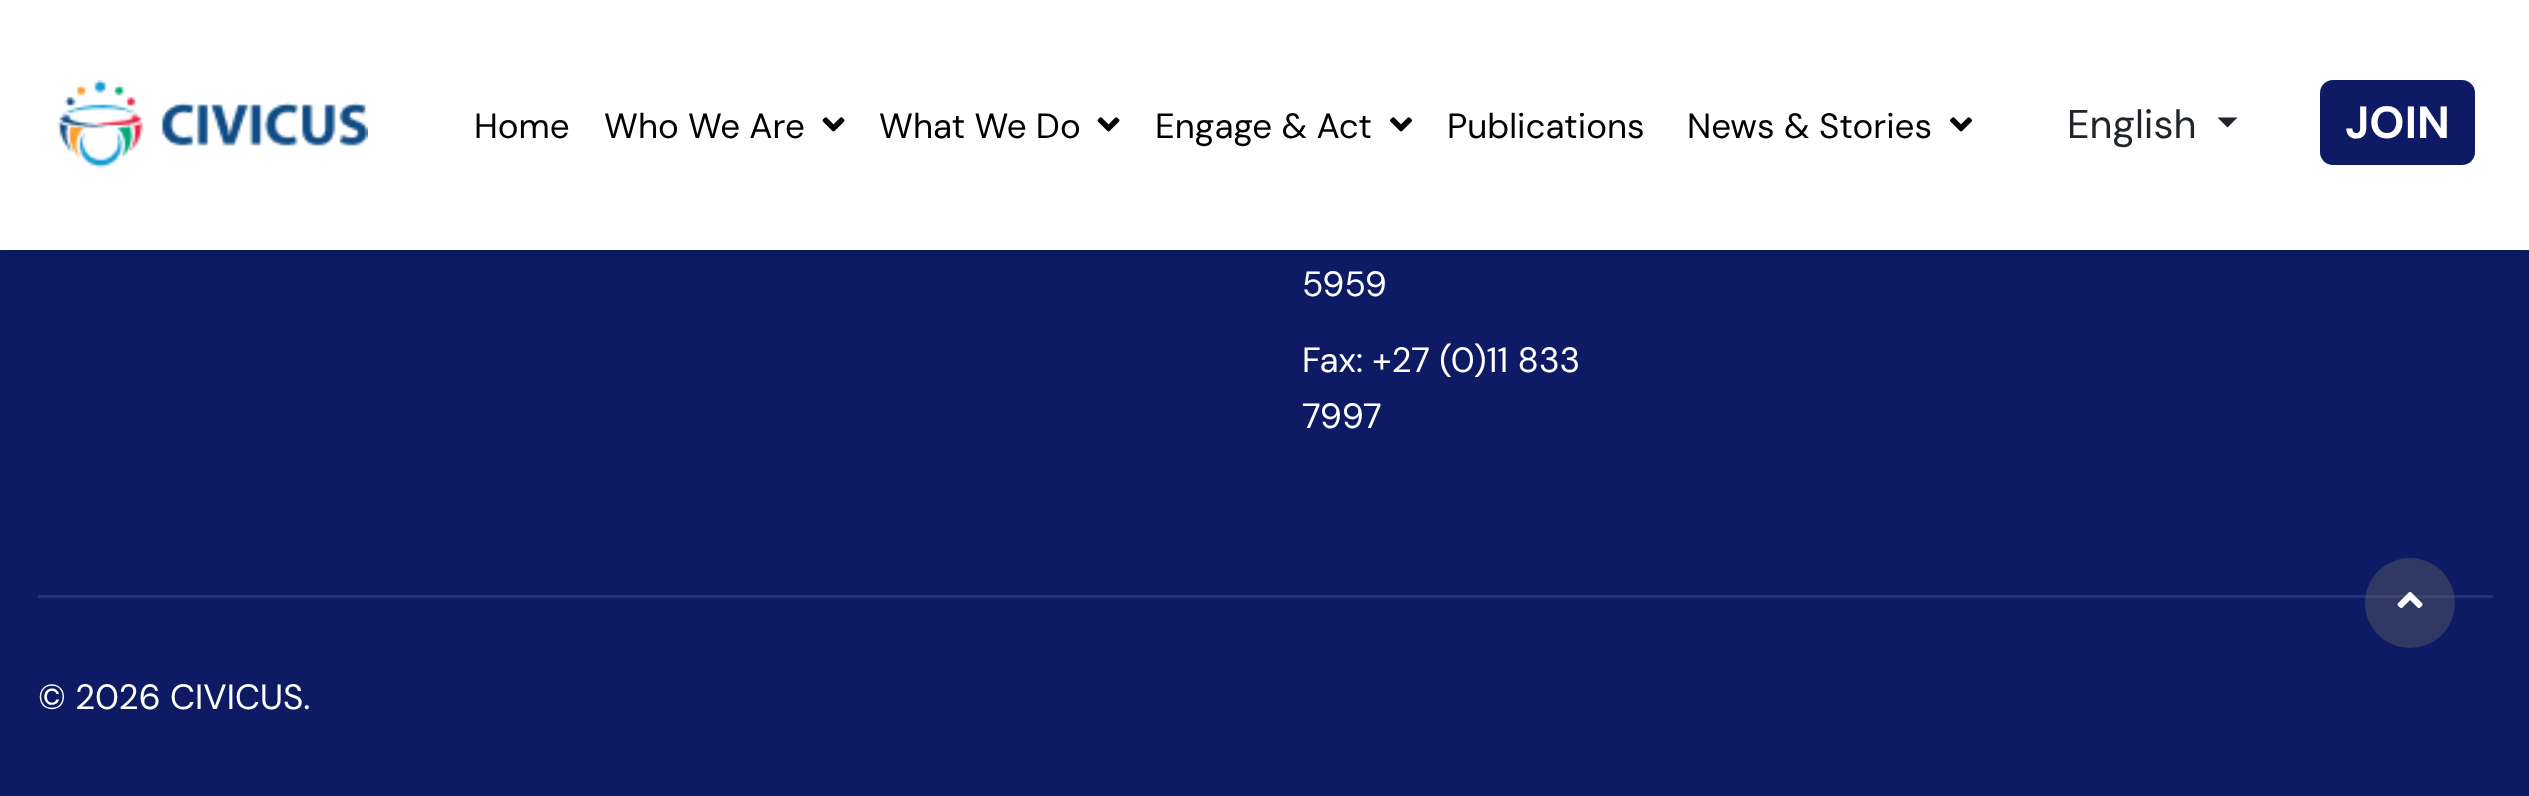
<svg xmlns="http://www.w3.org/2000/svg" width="2529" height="796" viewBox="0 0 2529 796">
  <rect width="100%" height="100%" fill="#0e1b64"/>
  <path d="M0 0h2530v250H0z" fill="#0000001a" filter="blur(5px)"/>
  <path d="M0 0h2529v250H0z" fill="#fff"/>
  <image x="57" y="80" width="311" height="89" href="img/1.png"/>
  <image x="822" y="117" width="23" height="15" href="img/2.png"/>
  <image x="1097" y="117" width="23" height="15" href="img/2.png"/>
  <image x="1390" y="117" width="22" height="15" href="img/3.png"/>
  <image x="1950" y="117" width="22" height="15" href="img/3.png"/>
  <path d="M2217.5 117.5H2237.5L2227.5 127.5Z" fill="#212529"/>
  <rect x="2320" y="80" width="155" height="85" rx="13" fill="#0e1b64"/>
  <path d="M38 595h2455v3H38z" fill="#263274"/>
  <circle cx="2410" cy="603" r="45" fill="#64646466"/>
  <image x="2397" y="592" width="26" height="16" href="img/4.png"/>
  <g font-family="DM Sans" font-size="35" fill="#000">
    <text x="474" y="138">Home</text>
    <text x="604" y="138">Who We Are</text>
    <text x="879" y="138">What We Do</text>
    <text x="1155" y="138">Engage &amp; Act</text>
    <text x="1447" y="138">Publications</text>
    <text x="1687" y="138">News &amp; Stories</text>
  </g>
  <text x="2067" y="138" font-family="DM Sans" font-size="40" fill="#212529">English</text>
  <text x="2345" y="138" font-family="DM Sans" font-size="45" font-weight="bold" fill="#fff">JOIN</text>
  <g font-family="DM Sans" font-size="35" fill="#fff">
    <text x="1302" y="296">5959</text>
    <text x="1302" y="372">Fax: +27 (0)11 833</text>
    <text x="1302" y="428">7997</text>
    <text x="38" y="709">© 2026 CIVICUS.</text>
  </g>
</svg>
